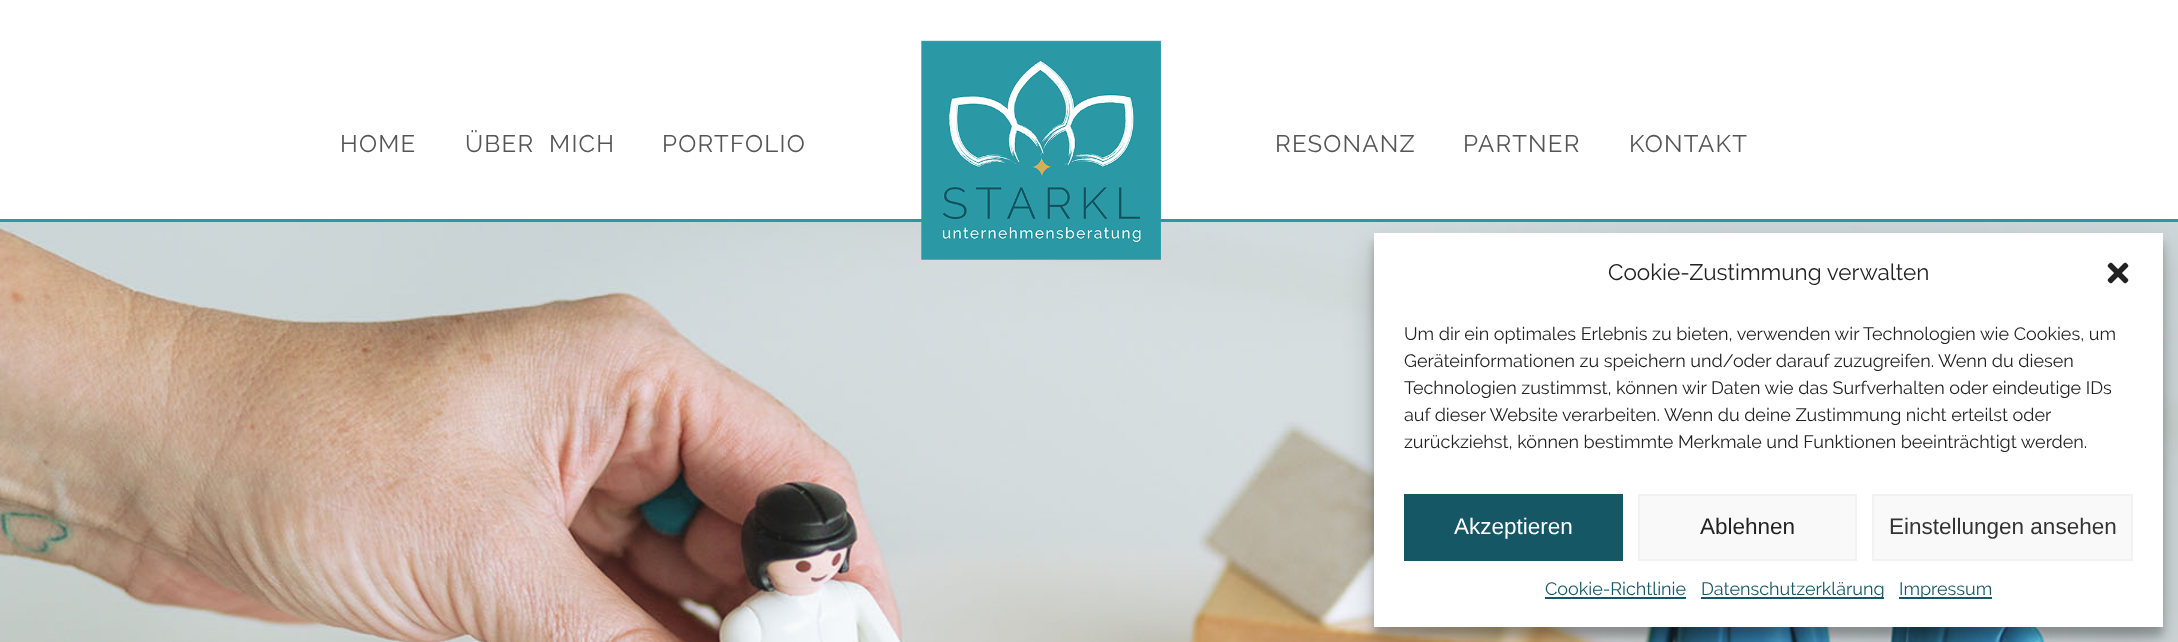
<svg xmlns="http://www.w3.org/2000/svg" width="2178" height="642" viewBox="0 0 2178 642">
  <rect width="100%" height="100%" fill="#fff"/>
  <path d="M0 219h2178v3H0z" fill="#2a99a5"/>
  <image x="0" y="222" width="2178" height="420" href="img/2.png"/>
  <image x="921" y="40" width="240" height="220" href="img/1.png"/>
  <path d="M1374 242h789v394H1374z" fill="#0000003b" filter="blur(4.5px)"/>
  <path d="M1374 248h789v394H1374z" fill="#00000030" filter="blur(15px)"/>
  <path d="M1374 233h789v394H1374z" fill="#fff"/>
  <image x="2107" y="262" width="22" height="22" href="img/3.png"/>
  <path d="M1404 494h219v67H1404z" fill="#155764"/>
  <path d="M1639 495h217v65H1639z" fill="#f9f9f9" stroke="#f2f2f2" stroke-width="2"/>
  <path d="M1873 495h259v65H1873z" fill="#f9f9f9" stroke="#f2f2f2" stroke-width="2"/>
  <path d="M1545 597h141v2H1545z" fill="#155764"/>
  <path d="M1701 597h183v2H1701z" fill="#155764"/>
  <path d="M1899 597h93v2H1899z" fill="#155764"/>
  <g font-family="Raleway" font-size="24" letter-spacing="1.25" fill="#555">
    <text x="340" y="152">HOME</text>
    <text x="465" y="152" xml:space="preserve">ÜBER  MICH</text>
    <text x="662" y="152">PORTFOLIO</text>
    <text x="1275" y="152">RESONANZ</text>
    <text x="1463" y="152">PARTNER</text>
    <text x="1629" y="152">KONTAKT</text>
  </g>
  <text x="1608" y="280" font-family="Raleway" font-size="22.5" fill="#222">Cookie-Zustimmung verwalten</text>
  <g font-family="Raleway" font-size="18" fill="#222">
    <text x="1404" y="340">Um dir ein optimales Erlebnis zu bieten, verwenden wir Technologien wie Cookies, um</text>
    <text x="1404" y="367">Geräteinformationen zu speichern und/oder darauf zuzugreifen. Wenn du diesen</text>
    <text x="1404" y="394">Technologien zustimmst, können wir Daten wie das Surfverhalten oder eindeutige IDs</text>
    <text x="1404" y="421">auf dieser Website verarbeiten. Wenn du deine Zustimmung nicht erteilst oder</text>
    <text x="1404" y="448">zurückziehst, können bestimmte Merkmale und Funktionen beeinträchtigt werden.</text>
  </g>
  <text x="1454" y="534" font-family="Liberation Sans" font-size="22.5" fill="#fff">Akzeptieren</text>
  <text x="1700" y="534" font-family="Liberation Sans" font-size="22.5" fill="#222">Ablehnen</text>
  <text x="1889" y="534" font-family="Liberation Sans" font-size="22.5" fill="#333">Einstellungen ansehen</text>
  <g font-family="Raleway" font-size="18" fill="#155764">
    <text x="1545" y="595">Cookie-Richtlinie</text>
    <text x="1701" y="595">Datenschutzerklärung</text>
    <text x="1899" y="595">Impressum</text>
  </g>
</svg>
